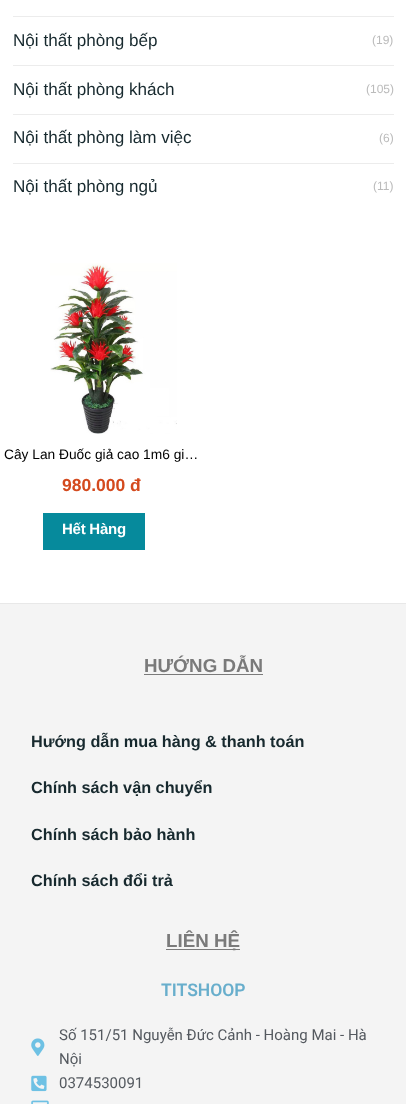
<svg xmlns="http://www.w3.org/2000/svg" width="406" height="1104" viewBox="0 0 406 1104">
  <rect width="100%" height="100%" fill="#fff"/>
  <path d="M13 16h381v1H13z" fill="#ececec"/>
  <path d="M13 65h381v1H13z" fill="#ececec"/>
  <path d="M13 114h381v1H13z" fill="#ececec"/>
  <path d="M13 163h381v1H13z" fill="#ececec"/>
  <image x="50" y="263" width="127" height="171" href="img/1.png"/>
  <path d="M43 513h102v37H43z" fill="#068a9c"/>
  <path d="M0 604h406v500H0z" fill="#f4f4f4"/>
  <path d="M0 603h406v1H0z" fill="#e8e8e8"/>
  <path d="M144 674h119v1H144z" fill="#7a7a7a"/>
  <path d="M166 949h74v1H166z" fill="#7a7a7a"/>
  <image x="31" y="1038" width="14" height="18" href="img/2.png"/>
  <image x="31" y="1075" width="16" height="17" href="img/3.png"/>
  <image x="31" y="1100" width="18" height="4" href="img/4.png"/>
  <text x="13" y="46" font-family="Liberation Sans" font-size="17.1" fill="#17292e">Nội thất phòng bếp</text>
  <text x="372" y="44" font-family="Liberation Sans" font-size="12" fill="#bbb">(19)</text>
  <text x="13" y="95" font-family="Liberation Sans" font-size="17.1" fill="#17292e">Nội thất phòng khách</text>
  <text x="366" y="93" font-family="Liberation Sans" font-size="12" fill="#bbb">(105)</text>
  <text x="13" y="143" font-family="Liberation Sans" font-size="17.1" fill="#17292e">Nội thất phòng làm việc</text>
  <text x="379" y="142" font-family="Liberation Sans" font-size="12" fill="#bbb">(6)</text>
  <text x="13" y="192" font-family="Liberation Sans" font-size="17.1" fill="#17292e">Nội thất phòng ngủ</text>
  <text x="373" y="190" font-family="Liberation Sans" font-size="12" fill="#bbb">(11)</text>
  <text x="4" y="459" font-family="Liberation Sans" font-size="13.75" fill="#000">Cây Lan Đuốc giả cao 1m6 gi…</text>
  <text x="62" y="491" font-family="Liberation Sans" font-size="17.5" font-weight="bold" fill="#d44a1e">980.000 đ</text>
  <text x="62" y="534" font-family="Liberation Sans" font-size="15" font-weight="bold" letter-spacing="-0.25" fill="#fff">Hết Hàng</text>
  <text x="144" y="672" font-family="Liberation Sans" font-size="18.75" font-weight="bold" fill="#7a7a7a">HƯỚNG DẪN</text>
  <g font-family="Liberation Sans" font-size="16.25" font-weight="bold" fill="#17292e">
    <text x="31" y="747">Hướng dẫn mua hàng &amp; thanh toán</text>
    <text x="31" y="793">Chính sách vận chuyển</text>
    <text x="31" y="840">Chính sách bảo hành</text>
    <text x="31" y="886">Chính sách đổi trả</text>
  </g>
  <text x="166" y="947" font-family="Liberation Sans" font-size="18.75" font-weight="bold" fill="#7a7a7a">LIÊN HỆ</text>
  <text x="161" y="996" font-family="Roboto" font-size="17.5" font-weight="600" fill="#68aecc">TITSHOOP</text>
  <g font-family="Roboto" font-size="15" fill="#54595f">
    <text x="59" y="1040">Số 151/51 Nguyễn Đức Cảnh - Hoàng Mai - Hà</text>
    <text x="59" y="1064">Nội</text>
    <text x="59" y="1088">0374530091</text>
  </g>
</svg>
